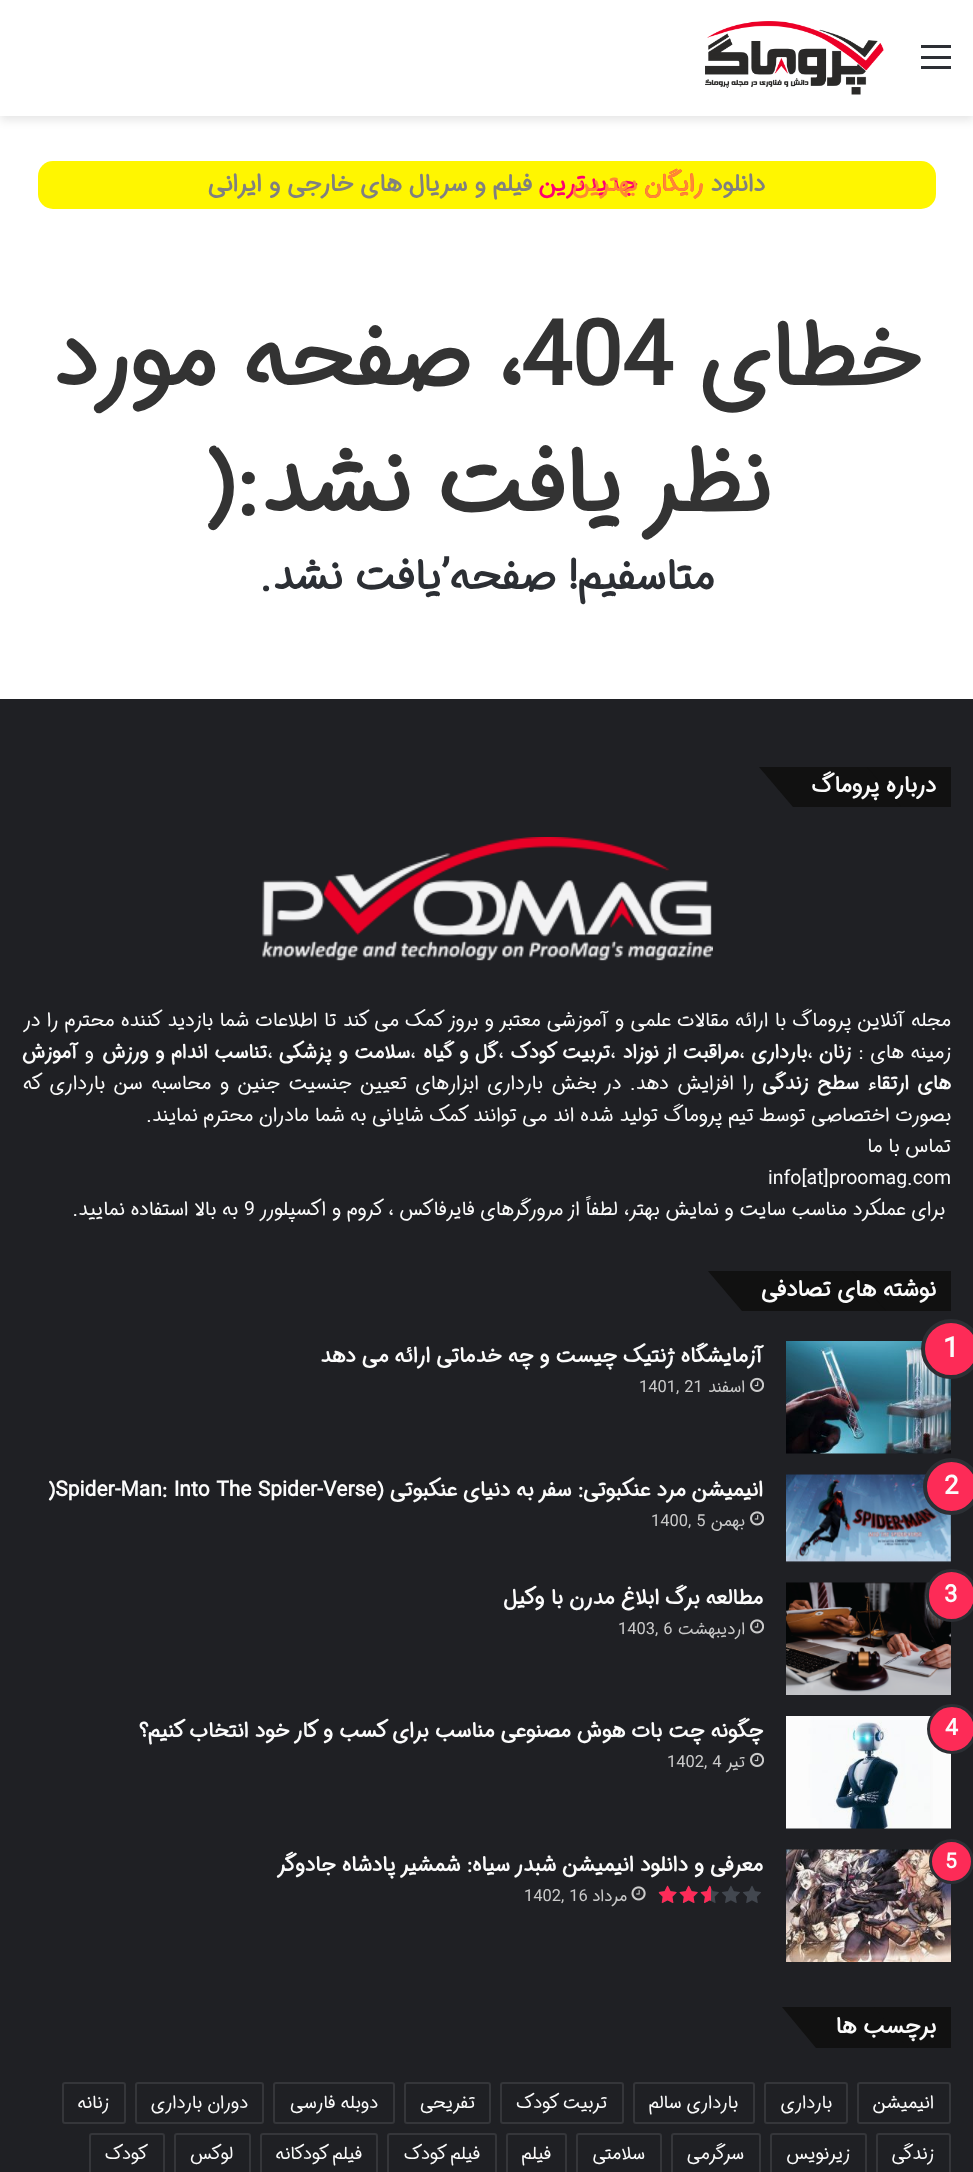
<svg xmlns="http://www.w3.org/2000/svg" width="973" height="2172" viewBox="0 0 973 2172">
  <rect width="100%" height="100%" fill="#fff"/>
  <path d="M0 5h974v115H0z" fill="#0000001a" filter="blur(5px)"/>
  <path d="M0 0h973v116H0z" fill="#fff"/>
  <path d="M921 56h30v3H921z" fill="#2c2f34"/>
  <path d="M921 45h30v3H921z" fill="#2c2f34"/>
  <path d="M921 66h30v3H921z" fill="#2c2f34"/>
  <image x="705" y="21" width="179" height="74" href="img/1.png"/>
  <rect x="38" y="161" width="898" height="48" rx="15" fill="#fff600"/>
  <path d="M0 699h973v1473H0z" fill="#1f2024"/>
  <path d="M867 767h84v40H867z" fill="#111"/>
  <path d="M759 767H867L901 807H793Z" fill="#111"/>
  <image x="262" y="837" width="451" height="124" href="img/2.png"/>
  <path d="M852 1271h99v40H852z" fill="#111"/>
  <path d="M708 1271H852L886 1311H742Z" fill="#111"/>
  <image x="786" y="1341" width="165" height="113" href="img/3.png"/>
  <circle cx="951" cy="1349" r="28" fill="#fd2b57" stroke="#2c2f34" stroke-width="4"/>
  <image x="750" y="1377" width="14" height="15" href="img/4.png"/>
  <image x="786" y="1474" width="165" height="89" href="img/5.png"/>
  <circle cx="951.5" cy="1486.5" r="26.5" fill="#fd2b57" stroke="#2c2f34" stroke-width="4"/>
  <image x="750" y="1511" width="14" height="15" href="img/6.png"/>
  <image x="786" y="1582" width="165" height="113" href="img/7.png"/>
  <rect x="927.5" y="1570.5" width="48" height="50" rx="24" fill="#fd2b57" stroke="#2c2f34" stroke-width="3"/>
  <image x="750" y="1619" width="14" height="15" href="img/6.png"/>
  <image x="786" y="1716" width="165" height="113" href="img/8.png"/>
  <image x="750" y="1752" width="14" height="15" href="img/4.png"/>
  <circle cx="952" cy="1729" r="23.5" fill="#fd2b57" stroke="#2c2f34" stroke-width="3"/>
  <image x="786" y="1849" width="165" height="113" href="img/9.png"/>
  <circle cx="951.5" cy="1861.5" r="21" fill="#fd2b57" stroke="#2c2f34" stroke-width="3"/>
  <image x="658" y="1885" width="103" height="18" href="img/10.png"/>
  <image x="659" y="1885" width="52" height="18" href="img/11.png"/>
  <image x="631" y="1886" width="15" height="15" href="img/12.png"/>
  <path d="M874 2007h77v41H874z" fill="#111"/>
  <path d="M782 2007H874L908 2048H816Z" fill="#111"/>
  <rect x="858" y="2083" width="92" height="40" rx="2" fill="none" stroke="#35363a" stroke-width="2"/>
  <rect x="765" y="2083" width="82" height="40" rx="2" fill="none" stroke="#35363a" stroke-width="2"/>
  <rect x="634" y="2083" width="120" height="40" rx="2" fill="none" stroke="#35363a" stroke-width="2"/>
  <rect x="501" y="2083" width="122" height="40" rx="2" fill="none" stroke="#35363a" stroke-width="2"/>
  <rect x="405" y="2083" width="85" height="40" rx="2" fill="none" stroke="#35363a" stroke-width="2"/>
  <rect x="274" y="2083" width="120" height="40" rx="2" fill="none" stroke="#35363a" stroke-width="2"/>
  <rect x="136" y="2083" width="127" height="40" rx="2" fill="none" stroke="#35363a" stroke-width="2"/>
  <rect x="63" y="2083" width="62" height="40" rx="2" fill="none" stroke="#35363a" stroke-width="2"/>
  <rect x="877" y="2134" width="73" height="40" rx="2" fill="none" stroke="#35363a" stroke-width="2"/>
  <rect x="771" y="2134" width="95" height="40" rx="2" fill="none" stroke="#35363a" stroke-width="2"/>
  <rect x="672" y="2134" width="88" height="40" rx="2" fill="none" stroke="#35363a" stroke-width="2"/>
  <rect x="577" y="2134" width="84" height="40" rx="2" fill="none" stroke="#35363a" stroke-width="2"/>
  <rect x="507" y="2134" width="59" height="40" rx="2" fill="none" stroke="#35363a" stroke-width="2"/>
  <rect x="388" y="2134" width="108" height="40" rx="2" fill="none" stroke="#35363a" stroke-width="2"/>
  <rect x="261" y="2134" width="116" height="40" rx="2" fill="none" stroke="#35363a" stroke-width="2"/>
  <rect x="175" y="2134" width="75" height="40" rx="2" fill="none" stroke="#35363a" stroke-width="2"/>
  <rect x="90" y="2134" width="74" height="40" rx="2" fill="none" stroke="#35363a" stroke-width="2"/>
  <text x="765" y="191" font-family="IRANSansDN" font-size="24" font-weight="bold" direction="rtl" fill="#808080">دانلود</text>
  <text x="703" y="191" font-family="IRANSansDN" font-size="24" font-weight="bold" direction="rtl" fill="#ff0071">رایگان جدیدترین</text>
  <text x="703" y="191" font-family="IRANSansDN" font-size="24" font-weight="bold" direction="rtl" fill="#f83">رایگان بهترین</text>
  <text x="532" y="191" font-family="IRANSansDN" font-size="24" font-weight="bold" direction="rtl" fill="#808080">فیلم و سریال های خارجی و ایرانی</text>
  <text x="920" y="385" font-family="IRANSansDN" font-size="90" font-weight="bold" direction="rtl" fill="#333">خطای</text>
  <text x="521" y="385" font-family="IRANSansDN" font-size="90" font-weight="bold" fill="#333">404</text>
  <g font-family="IRANSansDN" font-size="90" font-weight="bold" direction="rtl" fill="#333">
    <text x="521" y="385">، صفحه مورد</text>
    <text x="770" y="511">نظر یافت نشد:(</text>
  </g>
  <text x="714" y="589" font-family="IRANSansDN" font-size="42" font-weight="bold" direction="rtl" fill="#2c2f34">متاسفیم! صفحه’یافت نشد.</text>
  <text x="936" y="792" font-family="IRANSansDN" font-size="22.5" font-weight="bold" direction="rtl" fill="#fbfbfb">درباره پروماگ</text>
  <g font-family="IRANSansDN" font-size="19.5" direction="rtl" fill="#fbfbfb">
    <text x="951" y="1026" word-spacing="0.6">مجله آنلاین پروماگ با ارائه مقالات علمی و آموزشی معتبر و بروز کمک می کند تا اطلاعات شما بازدید کننده محترم را در</text>
    <text x="951" y="1058" word-spacing="1">زمینه های :</text>
  </g>
  <text x="851" y="1058" font-family="IRANSansDN" font-size="19.5" font-weight="bold" direction="rtl" fill="#fbfbfb">زنان</text>
  <text x="807" y="1058" font-family="IRANSansDN" font-size="19.5" fill="#fbfbfb">،</text>
  <text x="807" y="1058" font-family="IRANSansDN" font-size="19.5" font-weight="bold" direction="rtl" fill="#fbfbfb">بارداری</text>
  <text x="739" y="1058" font-family="IRANSansDN" font-size="19.5" fill="#fbfbfb">،</text>
  <text x="739" y="1058" word-spacing="1" font-family="IRANSansDN" font-size="19.5" font-weight="bold" direction="rtl" fill="#fbfbfb">مراقبت از نوزاد</text>
  <text x="610" y="1058" font-family="IRANSansDN" font-size="19.5" fill="#fbfbfb">،</text>
  <text x="610" y="1058" word-spacing="1" font-family="IRANSansDN" font-size="19.5" font-weight="bold" direction="rtl" fill="#fbfbfb">تربیت کودک</text>
  <text x="498" y="1058" font-family="IRANSansDN" font-size="19.5" fill="#fbfbfb">،</text>
  <text x="498" y="1058" word-spacing="1" font-family="IRANSansDN" font-size="19.5" font-weight="bold" direction="rtl" fill="#fbfbfb">گل و گیاه</text>
  <text x="410" y="1058" font-family="IRANSansDN" font-size="19.5" fill="#fbfbfb">،</text>
  <text x="410" y="1058" word-spacing="1" font-family="IRANSansDN" font-size="19.5" font-weight="bold" direction="rtl" fill="#fbfbfb">سلامت و پزشکی</text>
  <text x="267" y="1058" font-family="IRANSansDN" font-size="19.5" fill="#fbfbfb">،</text>
  <text x="267" y="1058" word-spacing="1" font-family="IRANSansDN" font-size="19.5" font-weight="bold" direction="rtl" fill="#fbfbfb">تناسب اندام و ورزش</text>
  <text x="94" y="1058" font-family="IRANSansDN" font-size="19.5" direction="rtl" fill="#fbfbfb">و</text>
  <g font-family="IRANSansDN" font-size="19.5" font-weight="bold" direction="rtl" fill="#fbfbfb">
    <text x="78" y="1058">آموزش</text>
    <text x="951" y="1089" word-spacing="2.9">های ارتقاء سطح زندگی</text>
  </g>
  <g font-family="IRANSansDN" font-size="19.5" direction="rtl" fill="#fbfbfb">
    <text x="754" y="1089" word-spacing="2.9">را افزایش دهد. در بخش بارداری ابزارهای تعیین جنسیت جنین و محاسبه سن بارداری که</text>
    <text x="951" y="1121">بصورت اختصاصی توسط تیم پروماگ تولید شده اند می توانند کمک شایانی به شما مادران محترم نمایند.</text>
    <text x="951" y="1152">تماس با ما</text>
  </g>
  <text x="768" y="1184" font-family="IRANSansDN" font-size="19.5" fill="#fbfbfb">info[at]proomag.com</text>
  <text x="945" y="1215" font-family="IRANSansDN" font-size="19.5" direction="rtl" fill="#fbfbfb">برای عملکرد مناسب سایت و نمایش بهتر، لطفاً از مرورگرهای فایرفاکس ، کروم و اکسپلورر</text>
  <text x="244" y="1215" font-family="IRANSansDN" font-size="19.5" fill="#fbfbfb">9</text>
  <text x="238" y="1215" font-family="IRANSansDN" font-size="19.5" direction="rtl" fill="#fbfbfb">به بالا استفاده نمایید.</text>
  <text x="936" y="1296" font-family="IRANSansDN" font-size="22.5" font-weight="bold" direction="rtl" fill="#fbfbfb">نوشته های تصادفی</text>
  <text x="943" y="1357" font-family="IRANSansDN" font-size="28" font-weight="bold" fill="#fbfbfb">1</text>
  <text x="763" y="1362" font-family="IRANSansDN" font-size="21" font-weight="bold" direction="rtl" fill="#fbfbfb">آزمایشگاه ژنتیک چیست و چه خدماتی ارائه می دهد</text>
  <text x="745" y="1392" font-family="IRANSansDN" font-size="16.5" direction="rtl" fill="#cacaca">اسفند</text>
  <text x="639" y="1392" font-family="IRANSansDN" font-size="16.5" fill="#cacaca">1401, 21</text>
  <text x="944" y="1494" font-family="IRANSansDN" font-size="26" font-weight="bold" fill="#fbfbfb">2</text>
  <text x="763" y="1496" font-family="IRANSansDN" font-size="21" font-weight="bold" direction="rtl" fill="#fbfbfb">انیمیشن مرد عنکبوتی: سفر به دنیای عنکبوتی (</text>
  <text x="48" y="1496" font-family="IRANSansDN" font-size="21" font-weight="bold" fill="#fbfbfb">)Spider-Man: Into The Spider-Verse</text>
  <text x="745" y="1526" font-family="IRANSansDN" font-size="16.5" direction="rtl" fill="#cacaca">بهمن</text>
  <text x="651" y="1526" font-family="IRANSansDN" font-size="16.5" fill="#cacaca">1400, 5</text>
  <text x="944" y="1602" font-family="IRANSansDN" font-size="24" font-weight="bold" fill="#fbfbfb">3</text>
  <text x="763" y="1604" font-family="IRANSansDN" font-size="21" font-weight="bold" direction="rtl" fill="#fbfbfb">مطالعه برگ ابلاغ مدرن با وکیل</text>
  <text x="745" y="1634" font-family="IRANSansDN" font-size="16.5" direction="rtl" fill="#cacaca">اردیبهشت</text>
  <text x="618" y="1634" font-family="IRANSansDN" font-size="16.5" fill="#cacaca">1403, 6</text>
  <text x="763" y="1737" font-family="IRANSansDN" font-size="21" font-weight="bold" direction="rtl" fill="#fbfbfb">چگونه چت بات هوش مصنوعی مناسب برای کسب و کار خود انتخاب کنیم؟</text>
  <text x="745" y="1767" font-family="IRANSansDN" font-size="16.5" direction="rtl" fill="#cacaca">تیر</text>
  <text x="667" y="1767" font-family="IRANSansDN" font-size="16.5" fill="#cacaca">1402, 4</text>
  <text x="945" y="1735" font-family="IRANSansDN" font-size="23" font-weight="bold" fill="#fbfbfb">4</text>
  <text x="945" y="1868" font-family="IRANSansDN" font-size="21" font-weight="bold" fill="#fbfbfb">5</text>
  <text x="763" y="1871" font-family="IRANSansDN" font-size="21" font-weight="bold" direction="rtl" fill="#fbfbfb">معرفی و دانلود انیمیشن شبدر سیاه: شمشیر پادشاه جادوگر</text>
  <text x="627" y="1901" font-family="IRANSansDN" font-size="16.5" direction="rtl" fill="#cacaca">مرداد</text>
  <text x="524" y="1901" font-family="IRANSansDN" font-size="16.5" fill="#cacaca">1402, 16</text>
  <text x="936" y="2033" font-family="IRANSansDN" font-size="22.5" font-weight="bold" direction="rtl" fill="#fbfbfb">برچسب ها</text>
  <g font-family="IRANSansDN" font-size="18" direction="rtl" fill="#fbfbfb">
    <text x="934" y="2108">انیمیشن</text>
    <text x="832" y="2108">بارداری</text>
    <text x="738" y="2108">بارداری سالم</text>
    <text x="607" y="2108">تربیت کودک</text>
    <text x="475" y="2108">تفریحی</text>
    <text x="378" y="2108">دوبله فارسی</text>
    <text x="248" y="2108">دوران بارداری</text>
    <text x="109" y="2108">زنانه</text>
    <text x="934" y="2159">زندگی</text>
    <text x="850" y="2159">زیرنویس</text>
    <text x="744" y="2159">سرگرمی</text>
    <text x="645" y="2159">سلامتی</text>
    <text x="551" y="2159">فیلم</text>
    <text x="480" y="2159">فیلم کودک</text>
    <text x="362" y="2159">فیلم کودکانه</text>
    <text x="233" y="2159">لوکس</text>
    <text x="148" y="2159">کودک</text>
  </g>
</svg>
